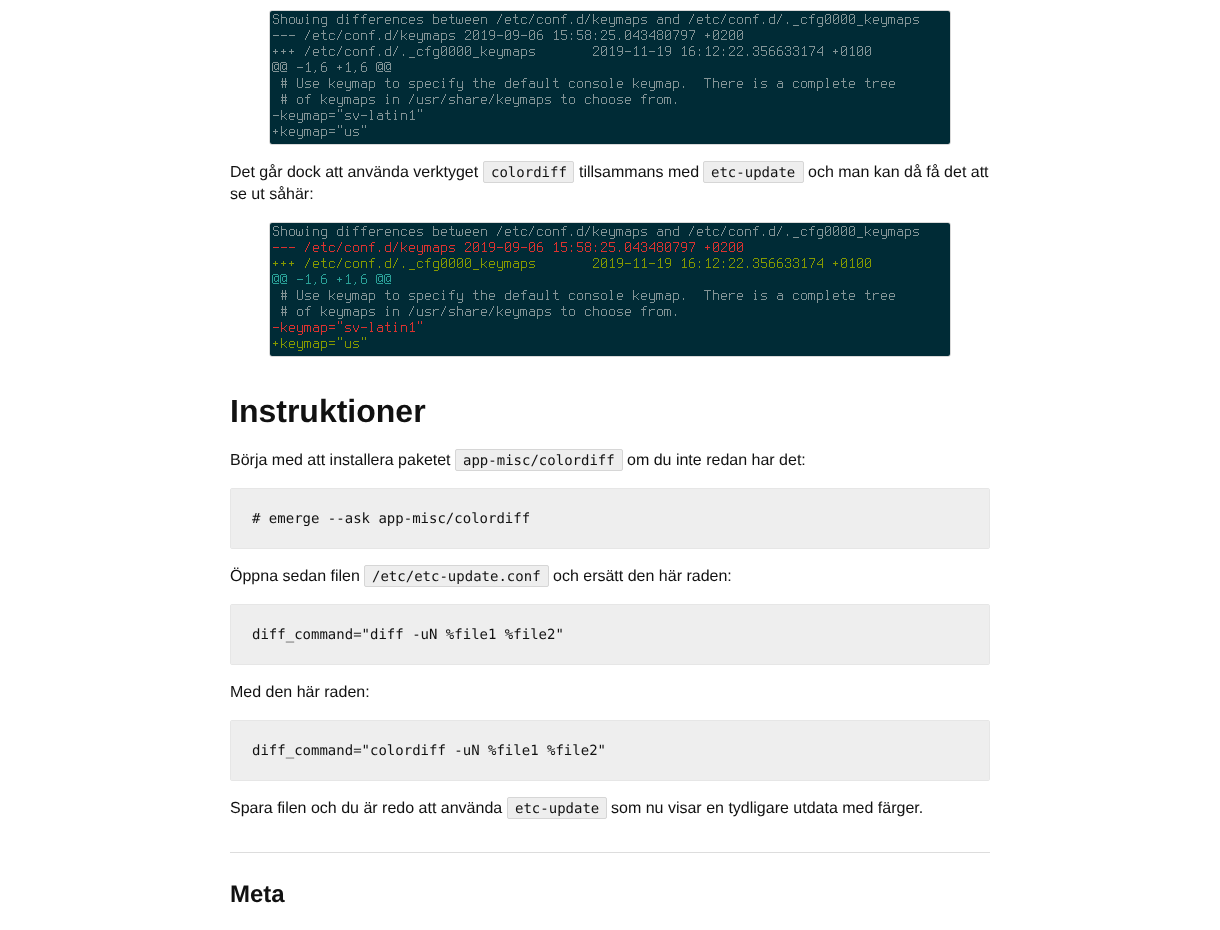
<svg xmlns="http://www.w3.org/2000/svg" width="1220" height="930" viewBox="0 0 1220 930">
  <rect width="100%" height="100%" fill="#fff"/>
  <rect x="269.5" y="10.5" width="681" height="134" rx="2.5" fill="none" stroke="#d9d9d9"/>
  <image x="270" y="11" width="680" height="133" href="img/1.png"/>
  <rect x="483.5" y="161.5" width="90" height="21" rx="1.5" fill="#eee" stroke="#d6d6d6"/>
  <rect x="703.5" y="161.5" width="100" height="21" rx="1.5" fill="#eee" stroke="#d6d6d6"/>
  <rect x="269.5" y="222.5" width="681" height="134" rx="2.5" fill="none" stroke="#d9d9d9"/>
  <image x="270" y="223" width="680" height="133" href="img/2.png"/>
  <rect x="455.5" y="449.5" width="167" height="21" rx="1.5" fill="#eee" stroke="#d6d6d6"/>
  <rect x="230.5" y="488.5" width="759" height="60" rx="1.5" fill="none" stroke="#e6e6e6"/>
  <path d="M231 489h758v59H231z" fill="#eee"/>
  <rect x="364.5" y="565.5" width="184" height="21" rx="1.5" fill="#eee" stroke="#d6d6d6"/>
  <rect x="230.5" y="604.5" width="759" height="60" rx="1.5" fill="none" stroke="#e6e6e6"/>
  <path d="M231 605h758v59H231z" fill="#eee"/>
  <rect x="230.5" y="720.5" width="759" height="60" rx="1.5" fill="none" stroke="#e6e6e6"/>
  <path d="M231 721h758v59H231z" fill="#eee"/>
  <rect x="507.5" y="797.5" width="99" height="21" rx="1.5" fill="#eee" stroke="#d6d6d6"/>
  <path d="M230 852h760v1H230z" fill="#ddd"/>
  <text x="230" y="177" font-family="Liberation Sans" font-size="16" fill="#111">Det går dock att använda verktyget</text>
  <text x="491" y="177" font-family="DejaVu Sans Mono" font-size="14" fill="#111">colordiff</text>
  <text x="579" y="177" font-family="Liberation Sans" font-size="16" fill="#111">tillsammans med</text>
  <text x="711" y="177" font-family="DejaVu Sans Mono" font-size="14" fill="#111">etc-update</text>
  <g font-family="Liberation Sans" font-size="16" fill="#111">
    <text x="808" y="177">och man kan då få det att</text>
    <text x="230" y="199">se ut såhär:</text>
  </g>
  <text x="230" y="422" font-family="Liberation Sans" font-size="32" font-weight="bold" fill="#111">Instruktioner</text>
  <text x="230" y="465" font-family="Liberation Sans" font-size="16" fill="#111">Börja med att installera paketet</text>
  <text x="463" y="465" font-family="DejaVu Sans Mono" font-size="14" fill="#111">app-misc/colordiff</text>
  <text x="627" y="465" font-family="Liberation Sans" font-size="16" fill="#111">om du inte redan har det:</text>
  <text x="252" y="523" font-family="DejaVu Sans Mono" font-size="14" fill="#111"># emerge --ask app-misc/colordiff</text>
  <text x="230" y="581" font-family="Liberation Sans" font-size="16" fill="#111">Öppna sedan filen</text>
  <text x="372" y="581" font-family="DejaVu Sans Mono" font-size="14" fill="#111">/etc/etc-update.conf</text>
  <text x="553" y="581" font-family="Liberation Sans" font-size="16" fill="#111">och ersätt den här raden:</text>
  <text x="252" y="639" font-family="DejaVu Sans Mono" font-size="14" fill="#111">diff_command="diff -uN %file1 %file2"</text>
  <text x="230" y="697" font-family="Liberation Sans" font-size="16" fill="#111">Med den här raden:</text>
  <text x="252" y="755" font-family="DejaVu Sans Mono" font-size="14" fill="#111">diff_command="colordiff -uN %file1 %file2"</text>
  <text x="230" y="813" font-family="Liberation Sans" font-size="16" fill="#111">Spara filen och du är redo att använda</text>
  <text x="515" y="813" font-family="DejaVu Sans Mono" font-size="14" fill="#111">etc-update</text>
  <text x="611" y="813" font-family="Liberation Sans" font-size="16" fill="#111">som nu visar en tydligare utdata med färger.</text>
  <text x="230" y="902" font-family="Liberation Sans" font-size="24" font-weight="bold" fill="#111">Meta</text>
</svg>
